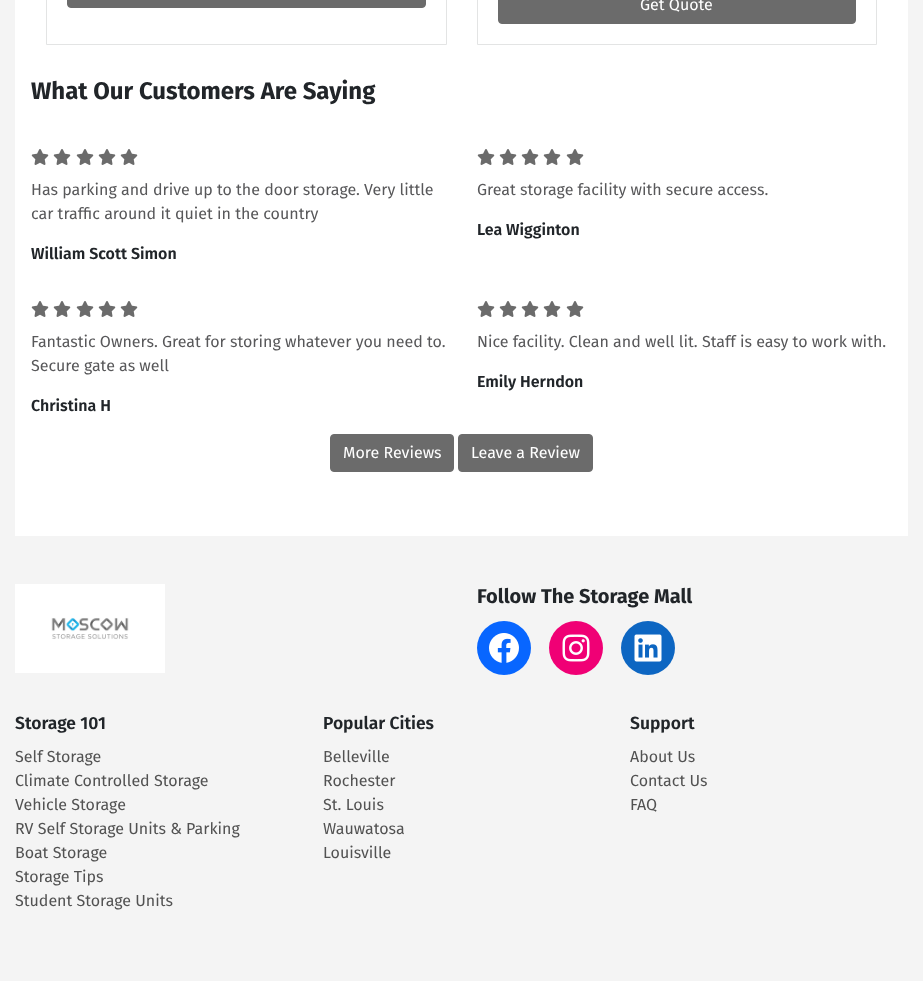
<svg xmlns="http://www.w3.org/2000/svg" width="923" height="981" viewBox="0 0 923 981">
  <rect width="100%" height="100%" fill="#f4f4f4"/>
  <path d="M15 0h893v536H15z" fill="#fff"/>
  <path d="M46.5 -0.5h400v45H46.5z" fill="none" stroke="#e3e4e4"/>
  <rect x="67.5" y="-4.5" width="358" height="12" rx="3.5" fill="#6b6b6b" stroke="#6b6b6b"/>
  <path d="M477.5 -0.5h399v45H477.5z" fill="none" stroke="#e3e4e4"/>
  <rect x="498.5" y="-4.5" width="357" height="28" rx="3.5" fill="#6b6b6b" stroke="#6b6b6b"/>
  <image x="31" y="149" width="18" height="16" href="img/1.png"/>
  <image x="53" y="149" width="18" height="16" href="img/1.png"/>
  <image x="76" y="149" width="18" height="16" href="img/1.png"/>
  <image x="98" y="149" width="18" height="16" href="img/1.png"/>
  <image x="120" y="149" width="18" height="16" href="img/1.png"/>
  <image x="477" y="149" width="18" height="16" href="img/1.png"/>
  <image x="499" y="149" width="18" height="16" href="img/1.png"/>
  <image x="521" y="149" width="18" height="16" href="img/1.png"/>
  <image x="543" y="149" width="18" height="16" href="img/1.png"/>
  <image x="566" y="149" width="18" height="16" href="img/1.png"/>
  <image x="31" y="301" width="18" height="16" href="img/1.png"/>
  <image x="53" y="301" width="18" height="16" href="img/1.png"/>
  <image x="76" y="301" width="18" height="16" href="img/1.png"/>
  <image x="98" y="301" width="18" height="16" href="img/1.png"/>
  <image x="120" y="301" width="18" height="16" href="img/1.png"/>
  <image x="477" y="301" width="18" height="16" href="img/1.png"/>
  <image x="499" y="301" width="18" height="16" href="img/1.png"/>
  <image x="521" y="301" width="18" height="16" href="img/1.png"/>
  <image x="543" y="301" width="18" height="16" href="img/1.png"/>
  <image x="566" y="301" width="18" height="16" href="img/1.png"/>
  <rect x="330.5" y="434.5" width="123" height="37" rx="3.5" fill="#6b6b6b" stroke="#6b6b6b"/>
  <rect x="458.5" y="434.5" width="134" height="37" rx="3.5" fill="#6b6b6b" stroke="#6b6b6b"/>
  <image x="15" y="584" width="150" height="89" href="img/2.png"/>
  <circle cx="504" cy="648" r="27" fill="#0866ff"/>
  <image x="489" y="633" width="30" height="30" href="img/3.png"/>
  <circle cx="576" cy="648" r="27" fill="#f00075"/>
  <image x="562" y="634" width="28" height="28" href="img/4.png"/>
  <circle cx="648" cy="648" r="27" fill="#0d66c2"/>
  <image x="634" y="634" width="28" height="28" href="img/5.png"/>
  <text x="640" y="10" font-family="Fira Sans" font-size="16" fill="#fff">Get Quote</text>
  <text x="31" y="99" font-family="Fira Sans" font-size="24" font-weight="bold" fill="#212529">What Our Customers Are Saying</text>
  <g font-family="Fira Sans" font-size="16" fill="#58585a">
    <text x="31" y="195">Has parking and drive up to the door storage. Very little</text>
    <text x="31" y="219">car traffic around it quiet in the country</text>
  </g>
  <text x="31" y="259" font-family="Fira Sans" font-size="16" font-weight="600" fill="#212529">William Scott Simon</text>
  <text x="477" y="195" font-family="Fira Sans" font-size="16" fill="#58585a">Great storage facility with secure access.</text>
  <text x="477" y="235" font-family="Fira Sans" font-size="16" font-weight="600" fill="#212529">Lea Wigginton</text>
  <g font-family="Fira Sans" font-size="16" fill="#58585a">
    <text x="31" y="347">Fantastic Owners. Great for storing whatever you need to.</text>
    <text x="31" y="371">Secure gate as well</text>
  </g>
  <text x="31" y="411" font-family="Fira Sans" font-size="16" font-weight="600" fill="#212529">Christina H</text>
  <text x="477" y="347" font-family="Fira Sans" font-size="16" fill="#58585a">Nice facility. Clean and well lit. Staff is easy to work with.</text>
  <text x="477" y="387" font-family="Fira Sans" font-size="16" font-weight="600" fill="#212529">Emily Herndon</text>
  <g font-family="Fira Sans" font-size="16" fill="#fff">
    <text x="343" y="458">More Reviews</text>
    <text x="471" y="458">Leave a Review</text>
  </g>
  <text x="477" y="603" font-family="Fira Sans" font-size="20" font-weight="bold" fill="#212529">Follow The Storage Mall</text>
  <text x="15" y="729" font-family="Fira Sans" font-size="17.5" font-weight="600" fill="#212529">Storage 101</text>
  <g font-family="Fira Sans" font-size="16" fill="#525252">
    <text x="15" y="762">Self Storage</text>
    <text x="15" y="786">Climate Controlled Storage</text>
    <text x="15" y="810">Vehicle Storage</text>
    <text x="15" y="834">RV Self Storage Units &amp; Parking</text>
    <text x="15" y="858">Boat Storage</text>
    <text x="15" y="882">Storage Tips</text>
    <text x="15" y="906">Student Storage Units</text>
  </g>
  <text x="323" y="729" font-family="Fira Sans" font-size="17.5" font-weight="600" fill="#212529">Popular Cities</text>
  <g font-family="Fira Sans" font-size="16" fill="#525252">
    <text x="323" y="762">Belleville</text>
    <text x="323" y="786">Rochester</text>
    <text x="323" y="810">St. Louis</text>
    <text x="323" y="834">Wauwatosa</text>
    <text x="323" y="858">Louisville</text>
  </g>
  <text x="630" y="729" font-family="Fira Sans" font-size="17.5" font-weight="600" fill="#212529">Support</text>
  <g font-family="Fira Sans" font-size="16" fill="#525252">
    <text x="630" y="762">About Us</text>
    <text x="630" y="786">Contact Us</text>
    <text x="630" y="810">FAQ</text>
  </g>
</svg>
